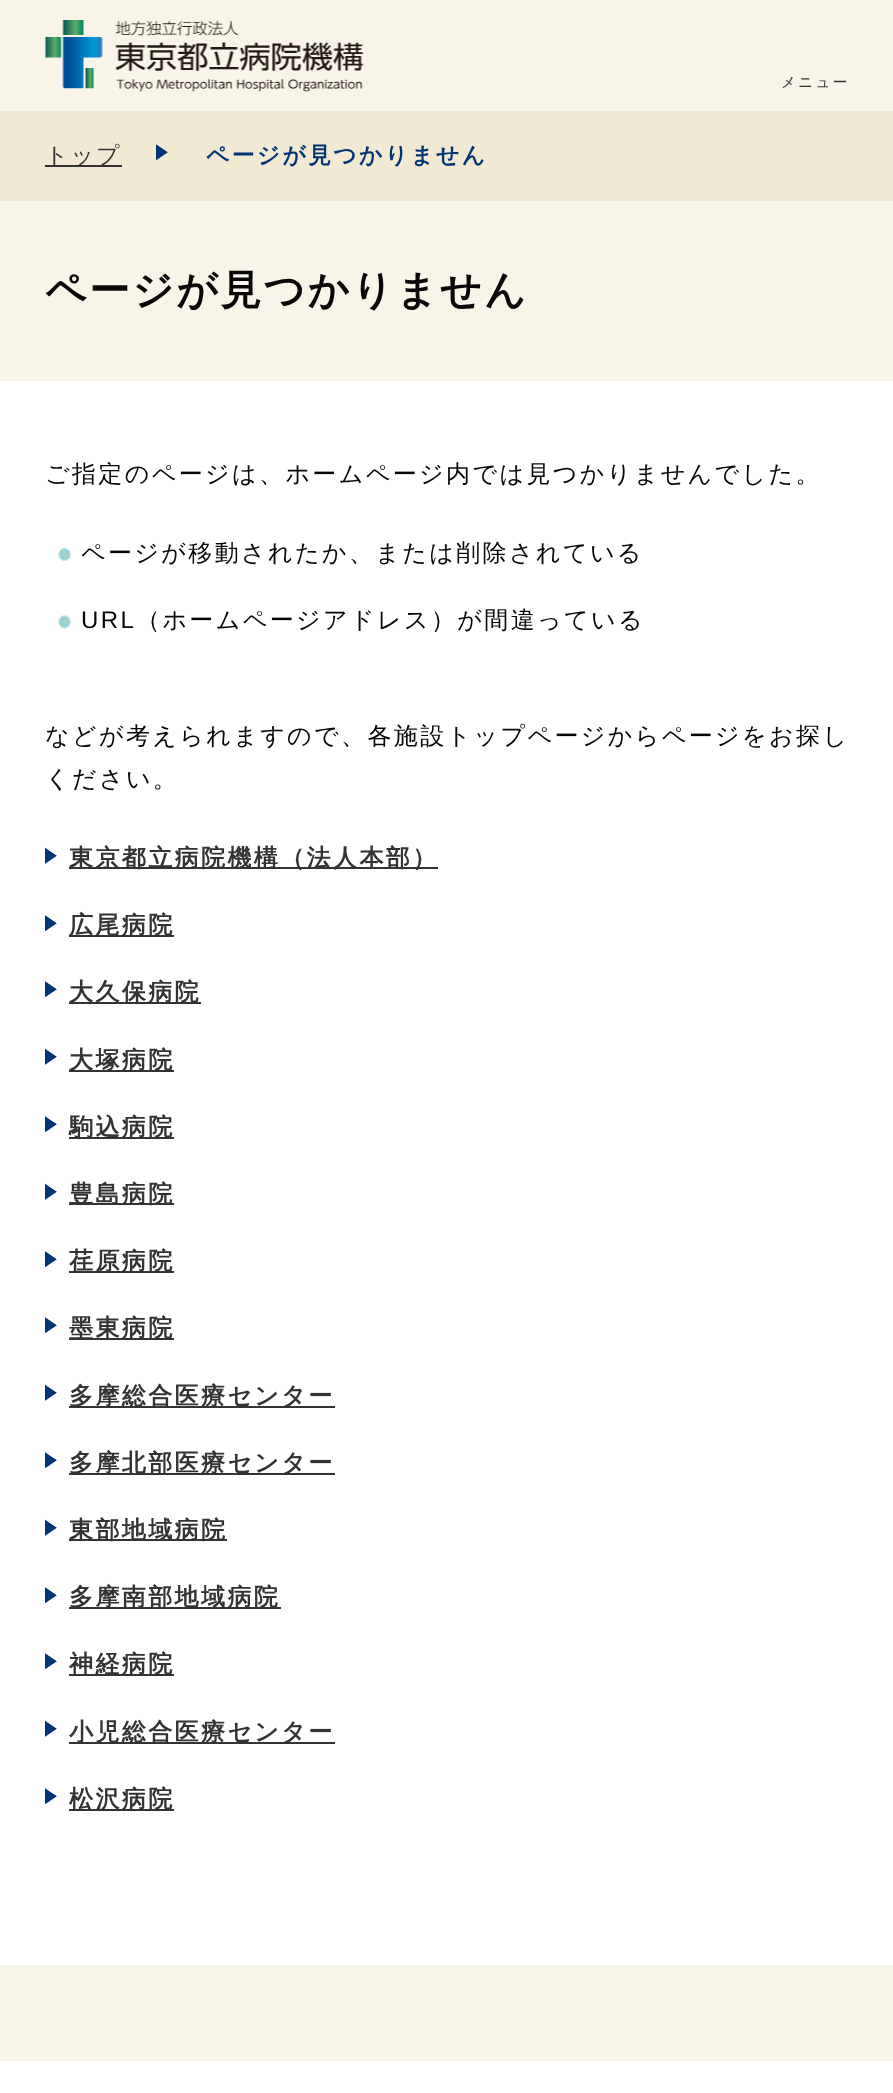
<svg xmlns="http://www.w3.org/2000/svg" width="893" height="2093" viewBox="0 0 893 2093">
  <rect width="100%" height="100%" fill="#f8f4e7"/>
  <image x="45" y="20" width="319" height="72" href="img/1.png"/>
  <path d="M0 111h893v90H0z" fill="#f1e9d1"/>
  <path d="M45 165h77v2H45z" fill="#333"/>
  <image x="156" y="144" width="12" height="17" href="img/2.png"/>
  <path d="M0 381h893v1584H0z" fill="#fff"/>
  <image x="58" y="547" width="13" height="14" href="img/3.png"/>
  <image x="58" y="615" width="13" height="14" href="img/4.png"/>
  <image x="45" y="847" width="12" height="17" href="img/5.png"/>
  <path d="M69 867h369v2H69z" fill="#333"/>
  <image x="45" y="915" width="12" height="17" href="img/6.png"/>
  <path d="M69 935h105v2H69z" fill="#333"/>
  <image x="45" y="981" width="12" height="17" href="img/6.png"/>
  <path d="M69 1002h132v2H69z" fill="#333"/>
  <image x="45" y="1048" width="12" height="17" href="img/5.png"/>
  <path d="M69 1070h105v2H69z" fill="#333"/>
  <image x="45" y="1116" width="12" height="17" href="img/6.png"/>
  <path d="M69 1137h105v2H69z" fill="#333"/>
  <image x="45" y="1183" width="12" height="17" href="img/5.png"/>
  <path d="M69 1203h105v2H69z" fill="#333"/>
  <image x="45" y="1251" width="12" height="17" href="img/6.png"/>
  <path d="M69 1271h105v2H69z" fill="#333"/>
  <image x="45" y="1317" width="12" height="17" href="img/6.png"/>
  <path d="M69 1338h105v2H69z" fill="#333"/>
  <image x="45" y="1384" width="12" height="17" href="img/5.png"/>
  <path d="M69 1406h266v2H69z" fill="#333"/>
  <image x="45" y="1452" width="12" height="17" href="img/6.png"/>
  <path d="M69 1473h266v2H69z" fill="#333"/>
  <image x="45" y="1519" width="12" height="17" href="img/5.png"/>
  <path d="M69 1539h158v2H69z" fill="#333"/>
  <image x="45" y="1587" width="12" height="17" href="img/6.png"/>
  <path d="M69 1607h212v2H69z" fill="#333"/>
  <image x="45" y="1653" width="12" height="17" href="img/6.png"/>
  <path d="M69 1674h105v2H69z" fill="#333"/>
  <image x="45" y="1720" width="12" height="17" href="img/5.png"/>
  <path d="M69 1742h266v2H69z" fill="#333"/>
  <image x="45" y="1788" width="12" height="17" href="img/6.png"/>
  <path d="M69 1809h105v2H69z" fill="#333"/>
  <path d="M0 2061h893v32H0z" fill="#fff"/>
  <text x="781" y="87" font-family="WenQuanYi Zen Hei" font-size="14.5" font-weight="500" letter-spacing="2.4" fill="#333">メニュー</text>
  <text x="45" y="163" font-family="WenQuanYi Zen Hei" font-size="22.75" font-weight="500" letter-spacing="2.4" fill="#333">トップ</text>
  <text x="206" y="163" font-family="WenQuanYi Zen Hei" font-size="22.75" font-weight="bold" letter-spacing="2.4" fill="#003477">ページが見つかりません</text>
  <text x="45" y="304" font-family="WenQuanYi Zen Hei" font-size="40.75" font-weight="bold" letter-spacing="2.4" fill="#070707">ページが見つかりません</text>
  <g font-family="WenQuanYi Zen Hei" font-size="24" font-weight="500" letter-spacing="2.4" fill="#070707">
    <text x="45" y="482">ご指定のページは、ホームページ内では見つかりませんでした。</text>
    <text x="81" y="561">ページが移動されたか、または削除されている</text>
  </g>
  <text x="81" y="628" font-family="Liberation Sans" font-size="24" letter-spacing="2.4" fill="#070707">URL</text>
  <g font-family="WenQuanYi Zen Hei" font-size="24" font-weight="500" letter-spacing="2.4" fill="#070707">
    <text x="136" y="628">（ホームページアドレス）が間違っている</text>
    <text x="45" y="744">などが考えられますので、各施設トップページからページをお探し</text>
    <text x="45" y="787">ください。</text>
  </g>
  <g font-family="WenQuanYi Zen Hei" font-size="24" font-weight="bold" letter-spacing="2.4" fill="#333">
    <text x="69" y="866">東京都立病院機構（法人本部）</text>
    <text x="69" y="933">広尾病院</text>
    <text x="69" y="1000">大久保病院</text>
    <text x="69" y="1068">大塚病院</text>
    <text x="69" y="1135">駒込病院</text>
    <text x="69" y="1202">豊島病院</text>
    <text x="69" y="1269">荏原病院</text>
    <text x="69" y="1336">墨東病院</text>
    <text x="69" y="1404">多摩総合医療センター</text>
    <text x="69" y="1471">多摩北部医療センター</text>
    <text x="69" y="1538">東部地域病院</text>
    <text x="69" y="1605">多摩南部地域病院</text>
    <text x="69" y="1672">神経病院</text>
    <text x="69" y="1740">小児総合医療センター</text>
    <text x="69" y="1807">松沢病院</text>
  </g>
</svg>
